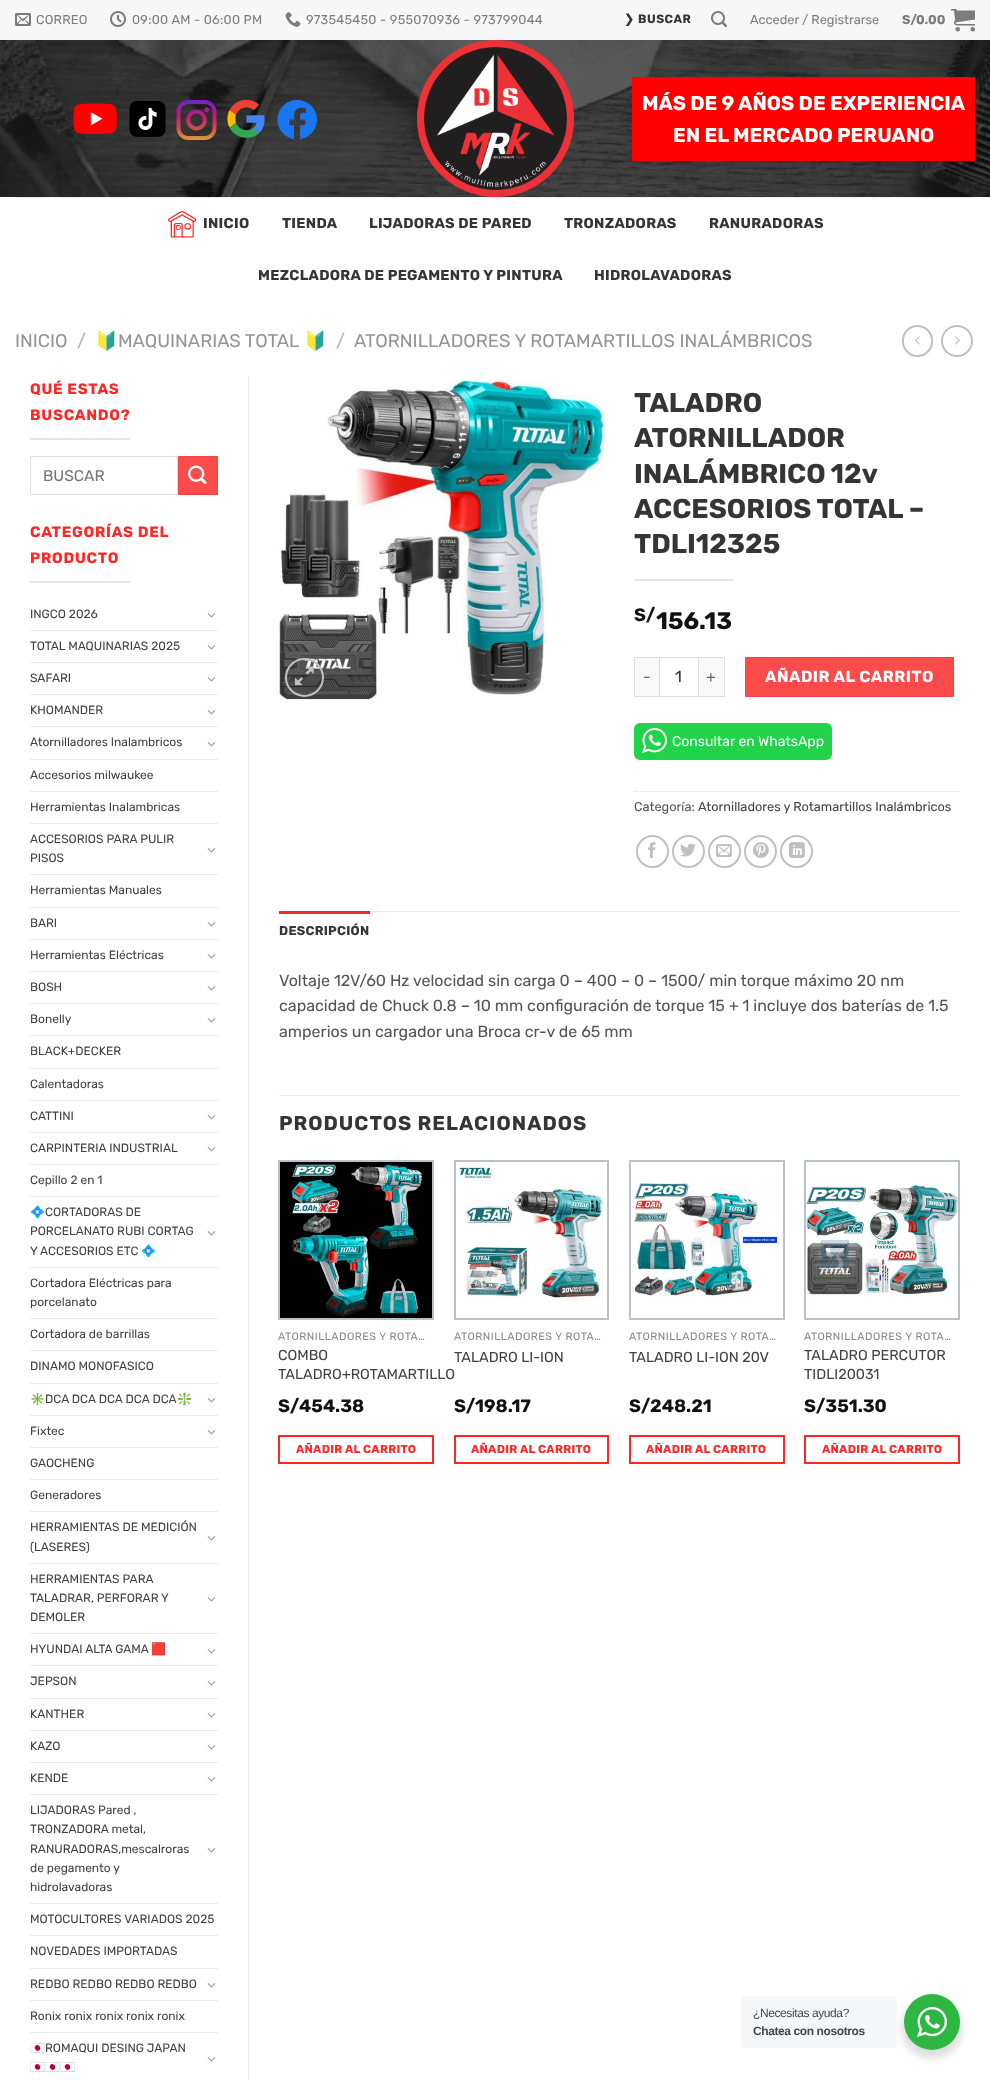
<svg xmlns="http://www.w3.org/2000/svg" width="990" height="2080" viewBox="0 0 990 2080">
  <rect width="100%" height="100%" fill="#fff"/>
  <path d="M0 0h990v40H0z" fill="#f7f7f7"/>
  <image x="15" y="13" width="16" height="13" href="img/1.png"/>
  <image x="110" y="11" width="16" height="16" href="img/2.png"/>
  <image x="285" y="12" width="16" height="15" href="img/3.png"/>
  <image x="711" y="11" width="16" height="16" href="img/4.png"/>
  <image x="951" y="9" width="24" height="23" href="img/5.png"/>
  <image x="0" y="40" width="990" height="157" href="img/6.png"/>
  <image x="73" y="103" width="44" height="31" href="img/7.png"/>
  <image x="129" y="101" width="37" height="36" href="img/8.png"/>
  <image x="176" y="100" width="41" height="40" href="img/9.png"/>
  <image x="227" y="99" width="38" height="39" href="img/10.png"/>
  <image x="277" y="100" width="41" height="40" href="img/11.png"/>
  <image x="417" y="40" width="157" height="157" href="img/12.png"/>
  <path d="M632 77h343v84H632z" fill="#f00"/>
  <path d="M15 197h960v1H15z" fill="#eee"/>
  <image x="168" y="211" width="29" height="27" href="img/13.png"/>
  <rect x="903" y="326" width="29" height="30" rx="14.5" fill="none" stroke="#c0c0c0" stroke-width="2"/>
  <image x="915" y="336" width="5" height="9" href="img/14.png"/>
  <circle cx="957" cy="341" r="15" fill="none" stroke="#c0c0c0" stroke-width="2"/>
  <image x="955" y="336" width="5" height="9" href="img/15.png"/>
  <path d="M30 438h100v2H30z" fill="#e6e6e6"/>
  <path d="M30.5 456.5h147v38H30.5z" fill="none" stroke="#ddd"/>
  <path d="M178.5 456.5h39v38H178.5z" fill="#fb4b4b" stroke="#ee4747"/>
  <image x="188" y="465" width="19" height="20" href="img/16.png"/>
  <path d="M30 581h100v2H30z" fill="#e6e6e6"/>
  <image x="207" y="613" width="9" height="5" href="img/17.png"/>
  <path d="M30 630h188v1H30z" fill="#ececec"/>
  <image x="207" y="645" width="9" height="5" href="img/17.png"/>
  <path d="M30 662h188v1H30z" fill="#ececec"/>
  <image x="207" y="677" width="9" height="5" href="img/17.png"/>
  <path d="M30 694h188v1H30z" fill="#ececec"/>
  <image x="207" y="710" width="9" height="5" href="img/17.png"/>
  <path d="M30 726h188v1H30z" fill="#ececec"/>
  <image x="207" y="742" width="9" height="5" href="img/17.png"/>
  <path d="M30 759h188v1H30z" fill="#ececec"/>
  <path d="M30 791h188v1H30z" fill="#ececec"/>
  <path d="M30 823h188v1H30z" fill="#ececec"/>
  <image x="207" y="848" width="9" height="5" href="img/17.png"/>
  <path d="M30 874h188v1H30z" fill="#ececec"/>
  <path d="M30 907h188v1H30z" fill="#ececec"/>
  <image x="207" y="922" width="9" height="5" href="img/17.png"/>
  <path d="M30 939h188v1H30z" fill="#ececec"/>
  <image x="207" y="954" width="9" height="5" href="img/17.png"/>
  <path d="M30 971h188v1H30z" fill="#ececec"/>
  <image x="207" y="986" width="9" height="5" href="img/17.png"/>
  <path d="M30 1003h188v1H30z" fill="#ececec"/>
  <image x="207" y="1018" width="9" height="5" href="img/17.png"/>
  <path d="M30 1035h188v1H30z" fill="#ececec"/>
  <path d="M30 1068h188v1H30z" fill="#ececec"/>
  <path d="M30 1100h188v1H30z" fill="#ececec"/>
  <image x="207" y="1115" width="9" height="5" href="img/17.png"/>
  <path d="M30 1132h188v1H30z" fill="#ececec"/>
  <image x="207" y="1147" width="9" height="5" href="img/17.png"/>
  <path d="M30 1164h188v1H30z" fill="#ececec"/>
  <path d="M30 1196h188v1H30z" fill="#ececec"/>
  <image x="207" y="1231" width="9" height="5" href="img/17.png"/>
  <path d="M30 1267h188v1H30z" fill="#ececec"/>
  <path d="M30 1318h188v1H30z" fill="#ececec"/>
  <path d="M30 1350h188v1H30z" fill="#ececec"/>
  <path d="M30 1383h188v1H30z" fill="#ececec"/>
  <image x="207" y="1398" width="9" height="5" href="img/17.png"/>
  <path d="M30 1415h188v1H30z" fill="#ececec"/>
  <image x="207" y="1430" width="9" height="5" href="img/17.png"/>
  <path d="M30 1447h188v1H30z" fill="#ececec"/>
  <path d="M30 1479h188v1H30z" fill="#ececec"/>
  <path d="M30 1511h188v1H30z" fill="#ececec"/>
  <image x="207" y="1536" width="9" height="5" href="img/17.png"/>
  <path d="M30 1563h188v1H30z" fill="#ececec"/>
  <image x="207" y="1597" width="9" height="5" href="img/17.png"/>
  <path d="M30 1633h188v1H30z" fill="#ececec"/>
  <image x="207" y="1649" width="9" height="5" href="img/17.png"/>
  <path d="M30 1665h188v1H30z" fill="#ececec"/>
  <image x="207" y="1681" width="9" height="5" href="img/17.png"/>
  <path d="M30 1698h188v1H30z" fill="#ececec"/>
  <image x="207" y="1713" width="9" height="5" href="img/17.png"/>
  <path d="M30 1730h188v1H30z" fill="#ececec"/>
  <image x="207" y="1745" width="9" height="5" href="img/17.png"/>
  <path d="M30 1762h188v1H30z" fill="#ececec"/>
  <image x="207" y="1777" width="9" height="5" href="img/17.png"/>
  <path d="M30 1794h188v1H30z" fill="#ececec"/>
  <image x="207" y="1848" width="9" height="5" href="img/17.png"/>
  <path d="M30 1903h188v1H30z" fill="#ececec"/>
  <path d="M30 1935h188v1H30z" fill="#ececec"/>
  <path d="M30 1968h188v1H30z" fill="#ececec"/>
  <image x="207" y="1983" width="9" height="5" href="img/17.png"/>
  <path d="M30 2000h188v1H30z" fill="#ececec"/>
  <path d="M30 2032h188v1H30z" fill="#ececec"/>
  <image x="207" y="2057" width="9" height="5" href="img/17.png"/>
  <path d="M248 376h1v1704H248z" fill="#ececec"/>
  <image x="279" y="376" width="325" height="325" href="img/18.png"/>
  <circle cx="304.5" cy="677.5" r="18.5" fill="none" stroke="#c0c0c0" stroke-width="2"/>
  <image x="295" y="666" width="19" height="20" href="img/19.png"/>
  <path d="M634 579h100v2H634z" fill="#e6e6e6"/>
  <path d="M635 658h24v38H635z" fill="#f9f9f9"/>
  <path d="M634 657h25v1H634z" fill="#ddd"/>
  <path d="M634 696h25v1H634z" fill="#ddd"/>
  <path d="M634 657h1v40H634z" fill="#ddd"/>
  <path d="M659.5 657.5h39v39H659.5z" fill="none" stroke="#ddd"/>
  <path d="M699 658h25v38H699z" fill="#f9f9f9"/>
  <path d="M699 657h26v1H699z" fill="#ddd"/>
  <path d="M724 657h1v40H724z" fill="#ddd"/>
  <path d="M699 696h26v1H699z" fill="#ddd"/>
  <path d="M745.5 657.5h208v39H745.5z" fill="#fb4b4b" stroke="#ee4747"/>
  <rect x="634" y="723" width="198" height="37" rx="6" fill="#21d349"/>
  <image x="642" y="728" width="25" height="25" href="img/20.png"/>
  <path d="M634 791.5H960" fill="none" stroke="#ddd" stroke-dasharray="1 1"/>
  <circle cx="652.5" cy="851.5" r="15.5" fill="none" stroke="#c0c0c0" stroke-width="2"/>
  <image x="648" y="842" width="8" height="16" href="img/21.png"/>
  <circle cx="688.5" cy="851.5" r="15.5" fill="none" stroke="#c0c0c0" stroke-width="2"/>
  <image x="680" y="843" width="16" height="14" href="img/22.png"/>
  <circle cx="724.5" cy="851.5" r="15.5" fill="none" stroke="#c0c0c0" stroke-width="2"/>
  <image x="716" y="844" width="16" height="13" href="img/23.png"/>
  <circle cx="760.5" cy="851.5" r="15.5" fill="none" stroke="#c0c0c0" stroke-width="2"/>
  <image x="753" y="842" width="16" height="16" href="img/24.png"/>
  <circle cx="796.5" cy="851.5" r="15.5" fill="none" stroke="#c0c0c0" stroke-width="2"/>
  <image x="789" y="842" width="16" height="16" href="img/25.png"/>
  <path d="M370 911h590v1H370z" fill="#ececec"/>
  <path d="M279 911h91v3H279z" fill="#ff2626"/>
  <path d="M279 1095h681v1H279z" fill="#ececec"/>
  <path d="M279 1161h154v158H279z" fill="none" stroke="#b8c3c9" stroke-width="2"/>
  <image x="280" y="1162" width="152" height="156" href="img/26.png"/>
  <path d="M279 1436h154v27H279z" fill="none" stroke="#ff2626" stroke-width="2"/>
  <path d="M455 1161h153v158H455z" fill="none" stroke="#b8c3c9" stroke-width="2"/>
  <image x="456" y="1162" width="147" height="138" href="img/27.png"/>
  <path d="M455 1436h153v27H455z" fill="none" stroke="#ff2626" stroke-width="2"/>
  <path d="M630 1161h154v158H630z" fill="none" stroke="#b8c3c9" stroke-width="2"/>
  <image x="631" y="1178" width="148" height="118" href="img/28.png"/>
  <path d="M630 1436h154v27H630z" fill="none" stroke="#ff2626" stroke-width="2"/>
  <path d="M805 1161h154v158H805z" fill="none" stroke="#b8c3c9" stroke-width="2"/>
  <image x="806" y="1183" width="152" height="112" href="img/29.png"/>
  <path d="M805 1436h154v27H805z" fill="none" stroke="#ff2626" stroke-width="2"/>
  <rect x="902" y="1998" width="60" height="60" rx="30" fill="#00000024" filter="blur(4px)"/>
  <rect x="741" y="1996" width="156" height="52" rx="4" fill="#f5f7f9"/>
  <circle cx="932" cy="2022" r="28" fill="#2db742"/>
  <image x="917" y="2007" width="30" height="30" href="img/30.png"/>
  <g font-family="Rubik" font-size="12.75" letter-spacing="0.25" fill="#7c7c7c">
    <text x="36" y="24">CORREO</text>
    <text x="132" y="24">09:00 AM - 06:00 PM</text>
    <text x="306" y="24">973545450 - 955070936 - 973799044</text>
  </g>
  <text x="624" y="23" font-family="DejaVu Sans" font-size="12" font-weight="bold" letter-spacing="0.5" fill="#353535">❯</text>
  <text x="638" y="23" font-family="Rubik" font-size="12" font-weight="bold" letter-spacing="0.5" fill="#353535">BUSCAR</text>
  <text x="750" y="24" font-family="Rubik" font-size="12.75" fill="#7c7c7c">Acceder / Registrarse</text>
  <g font-family="Rubik" font-size="12.75" font-weight="bold" fill="#7c7c7c">
    <text x="902" y="24">S/</text>
    <text x="916" y="24">0.00</text>
  </g>
  <g font-family="Rubik" font-size="20" font-weight="bold" fill="#fff">
    <text x="642" y="110">MÁS DE 9 AÑOS DE EXPERIENCIA</text>
    <text x="673" y="142">EN EL MERCADO PERUANO</text>
  </g>
  <g font-family="Rubik" font-size="14.4" font-weight="bold" letter-spacing="0.3" fill="#353535">
    <text x="203" y="228">INICIO</text>
    <text x="282" y="228">TIENDA</text>
    <text x="369" y="228">LIJADORAS DE PARED</text>
    <text x="564" y="228">TRONZADORAS</text>
    <text x="709" y="228">RANURADORAS</text>
    <text x="258" y="280">MEZCLADORA DE PEGAMENTO Y PINTURA</text>
    <text x="594" y="280">HIDROLAVADORAS</text>
  </g>
  <text x="15" y="347" font-family="Rubik" font-size="18.4" fill="#949494">INICIO</text>
  <text x="77" y="347" font-family="Rubik" font-size="18.4" fill="#b2b2b2">/</text>
  <text x="95" y="347" font-family="Noto Color Emoji" font-size="18.4" fill="#949494">🔰</text>
  <text x="118" y="347" font-family="Rubik" font-size="18.4" fill="#949494">MAQUINARIAS TOTAL</text>
  <text x="304" y="347" font-family="Noto Color Emoji" font-size="18.4" fill="#949494">🔰</text>
  <text x="336" y="347" font-family="Rubik" font-size="18.4" fill="#b2b2b2">/</text>
  <text x="354" y="347" font-family="Rubik" font-size="18.4" fill="#949494">ATORNILLADORES Y ROTAMARTILLOS INALÁMBRICOS</text>
  <g font-family="Rubik" font-size="15" font-weight="bold" letter-spacing="0.75" fill="#ff2626">
    <text x="30" y="394">QUÉ ESTAS</text>
    <text x="30" y="420">BUSCANDO?</text>
  </g>
  <text x="43" y="481" font-family="Rubik" font-size="15.5" fill="#757575">BUSCAR</text>
  <g font-family="Rubik" font-size="15" font-weight="bold" letter-spacing="0.75" fill="#ff2626">
    <text x="30" y="537">CATEGORÍAS DEL</text>
    <text x="30" y="563">PRODUCTO</text>
  </g>
  <g font-family="Rubik" font-size="12" fill="#414141">
    <text x="30" y="618">INGCO 2026</text>
    <text x="30" y="650">TOTAL MAQUINARIAS 2025</text>
    <text x="30" y="682">SAFARI</text>
    <text x="30" y="714">KHOMANDER</text>
    <text x="30" y="746">Atornilladores Inalambricos</text>
    <text x="30" y="779">Accesorios milwaukee</text>
    <text x="30" y="811">Herramientas Inalambricas</text>
    <text x="30" y="843">ACCESORIOS PARA PULIR</text>
    <text x="30" y="862">PISOS</text>
    <text x="30" y="894">Herramientas Manuales</text>
    <text x="30" y="927">BARI</text>
    <text x="30" y="959">Herramientas Eléctricas</text>
    <text x="30" y="991">BOSH</text>
    <text x="30" y="1023">Bonelly</text>
    <text x="30" y="1055">BLACK+DECKER</text>
    <text x="30" y="1088">Calentadoras</text>
    <text x="30" y="1120">CATTINI</text>
    <text x="30" y="1152">CARPINTERIA INDUSTRIAL</text>
    <text x="30" y="1184">Cepillo 2 en 1</text>
  </g>
  <text x="30" y="1216" font-family="Noto Color Emoji" font-size="12" fill="#414141">💠</text>
  <g font-family="Rubik" font-size="12" fill="#414141">
    <text x="45" y="1216">CORTADORAS DE</text>
    <text x="30" y="1235">PORCELANATO RUBI CORTAG</text>
    <text x="30" y="1255">Y ACCESORIOS ETC</text>
  </g>
  <text x="141" y="1255" font-family="Noto Color Emoji" font-size="12" fill="#414141">💠</text>
  <g font-family="Rubik" font-size="12" fill="#414141">
    <text x="30" y="1287">Cortadora Eléctricas para</text>
    <text x="30" y="1306">porcelanato</text>
    <text x="30" y="1338">Cortadora de barrillas</text>
    <text x="30" y="1370">DINAMO MONOFASICO</text>
  </g>
  <text x="30" y="1403" font-family="Noto Color Emoji" font-size="12" fill="#414141">✳️</text>
  <text x="45" y="1403" font-family="Rubik" font-size="12" fill="#414141">DCA DCA DCA DCA DCA</text>
  <text x="177" y="1403" font-family="Noto Color Emoji" font-size="12" fill="#414141">❇️</text>
  <g font-family="Rubik" font-size="12" fill="#414141">
    <text x="30" y="1435">Fixtec</text>
    <text x="30" y="1467">GAOCHENG</text>
    <text x="30" y="1499">Generadores</text>
    <text x="30" y="1531">HERRAMIENTAS DE MEDICIÓN</text>
    <text x="30" y="1551">(LASERES)</text>
    <text x="30" y="1583">HERRAMIENTAS PARA</text>
    <text x="30" y="1602">TALADRAR, PERFORAR Y</text>
    <text x="30" y="1621">DEMOLER</text>
    <text x="30" y="1653">HYUNDAI ALTA GAMA</text>
  </g>
  <text x="151" y="1653" font-family="Noto Color Emoji" font-size="12" fill="#414141">🟥</text>
  <g font-family="Rubik" font-size="12" fill="#414141">
    <text x="30" y="1685">JEPSON</text>
    <text x="30" y="1718">KANTHER</text>
    <text x="30" y="1750">KAZO</text>
    <text x="30" y="1782">KENDE</text>
    <text x="30" y="1814">LIJADORAS Pared ,</text>
    <text x="30" y="1833">TRONZADORA metal,</text>
    <text x="30" y="1853">RANURADORAS,mescalroras</text>
    <text x="30" y="1872">de pegamento y</text>
    <text x="30" y="1891">hidrolavadoras</text>
    <text x="30" y="1923">MOTOCULTORES VARIADOS 2025</text>
    <text x="30" y="1955">NOVEDADES IMPORTADAS</text>
    <text x="30" y="1988">REDBO REDBO REDBO REDBO</text>
    <text x="30" y="2020">Ronix ronix ronix ronix ronix</text>
  </g>
  <text x="30" y="2052" font-family="Noto Color Emoji" font-size="12" fill="#414141">🇯🇵</text>
  <text x="45" y="2052" font-family="Rubik" font-size="12" fill="#414141">ROMAQUI DESING JAPAN</text>
  <text x="30" y="2071" font-family="Noto Color Emoji" font-size="12" fill="#414141">🇯🇵🇯🇵🇯🇵</text>
  <g font-family="Rubik" font-size="27.25" font-weight="bold" fill="#353535">
    <text x="634" y="412">TALADRO</text>
    <text x="634" y="447">ATORNILLADOR</text>
    <text x="634" y="483" word-spacing="-1">INALÁMBRICO 12v</text>
    <text x="634" y="518">ACCESORIOS TOTAL –</text>
    <text x="634" y="553">TDLI12325</text>
  </g>
  <text x="634" y="621" font-family="Rubik" font-size="18" font-weight="bold" fill="#111">S/</text>
  <text x="656" y="629" font-family="Rubik" font-size="24" font-weight="bold" fill="#111">156.13</text>
  <text x="643" y="682" font-family="Rubik" font-size="15.5" fill="#666">-</text>
  <text x="675" y="682" font-family="Rubik" font-size="16" fill="#353535">1</text>
  <text x="706" y="682" font-family="Rubik" font-size="15.5" fill="#666">+</text>
  <text x="765" y="682" font-family="Rubik" font-size="16" font-weight="bold" letter-spacing="0.5" fill="#fff">AÑADIR AL CARRITO</text>
  <text x="672" y="746" font-family="Rubik" font-size="14" fill="#fff">Consultar en WhatsApp</text>
  <text x="634" y="811" font-family="Rubik" font-size="12.75" fill="#545454">Categoría:</text>
  <text x="698" y="811" font-family="Rubik" font-size="12.75" fill="#414141">Atornilladores y Rotamartillos Inalámbricos</text>
  <text x="279" y="935" font-family="Rubik" font-size="12.75" font-weight="bold" letter-spacing="0.25" fill="#353535">DESCRIPCIÓN</text>
  <g font-family="Rubik" font-size="16" fill="#545454">
    <text x="279" y="986">Voltaje 12V/60 Hz velocidad sin carga 0 – 400 – 0 – 1500/ min torque máximo 20 nm</text>
    <text x="279" y="1011">capacidad de Chuck 0.8 – 10 mm configuración de torque 15 + 1 incluye dos baterías de 1.5</text>
    <text x="279" y="1037">amperios un cargador una Broca cr-v de 65 mm</text>
  </g>
  <text x="279" y="1130" font-family="Rubik" font-size="20" font-weight="bold" letter-spacing="1" fill="#353535">PRODUCTOS RELACIONADOS</text>
  <text x="278" y="1340" font-family="Rubik" font-size="10.75" letter-spacing="0.5" fill="#878787">ATORNILLADORES Y ROTA…</text>
  <g font-family="Rubik" font-size="14.4" fill="#414141">
    <text x="278" y="1360">COMBO</text>
    <text x="278" y="1379">TALADRO+ROTAMARTILLO</text>
  </g>
  <g font-family="Rubik" font-size="18" font-weight="bold" fill="#111">
    <text x="278" y="1412">S/</text>
    <text x="299" y="1412">454.38</text>
  </g>
  <text x="296" y="1453" font-family="Rubik" font-size="11.5" font-weight="bold" letter-spacing="0.3" fill="#ff2626">AÑADIR AL CARRITO</text>
  <text x="454" y="1340" font-family="Rubik" font-size="10.75" letter-spacing="0.5" fill="#878787">ATORNILLADORES Y ROTA…</text>
  <text x="454" y="1362" font-family="Rubik" font-size="14.4" fill="#414141">TALADRO LI-ION</text>
  <text x="454" y="1412" font-family="Rubik" font-size="18" font-weight="bold" fill="#111">S/198.17</text>
  <text x="471" y="1453" font-family="Rubik" font-size="11.5" font-weight="bold" letter-spacing="0.3" fill="#ff2626">AÑADIR AL CARRITO</text>
  <text x="629" y="1340" font-family="Rubik" font-size="10.75" letter-spacing="0.5" fill="#878787">ATORNILLADORES Y ROTA…</text>
  <text x="629" y="1362" font-family="Rubik" font-size="14.4" fill="#414141">TALADRO LI-ION 20V</text>
  <g font-family="Rubik" font-size="18" font-weight="bold" fill="#111">
    <text x="629" y="1412">S/</text>
    <text x="650" y="1412">248.21</text>
  </g>
  <text x="646" y="1453" font-family="Rubik" font-size="11.5" font-weight="bold" letter-spacing="0.3" fill="#ff2626">AÑADIR AL CARRITO</text>
  <text x="804" y="1340" font-family="Rubik" font-size="10.75" letter-spacing="0.5" fill="#878787">ATORNILLADORES Y ROTA…</text>
  <g font-family="Rubik" font-size="14.4" fill="#414141">
    <text x="804" y="1360">TALADRO PERCUTOR</text>
    <text x="804" y="1379">TIDLI20031</text>
  </g>
  <text x="804" y="1412" font-family="Rubik" font-size="18" font-weight="bold" fill="#111">S/351.30</text>
  <text x="822" y="1453" font-family="Rubik" font-size="11.5" font-weight="bold" letter-spacing="0.3" fill="#ff2626">AÑADIR AL CARRITO</text>
  <text x="753" y="2017" font-family="Liberation Sans" font-size="12" letter-spacing="-0.4" fill="#43474e">¿Necesitas ayuda?</text>
  <text x="753" y="2035" font-family="Liberation Sans" font-size="12" font-weight="bold" letter-spacing="-0.4" fill="#43474e">Chatea con nosotros</text>
</svg>
